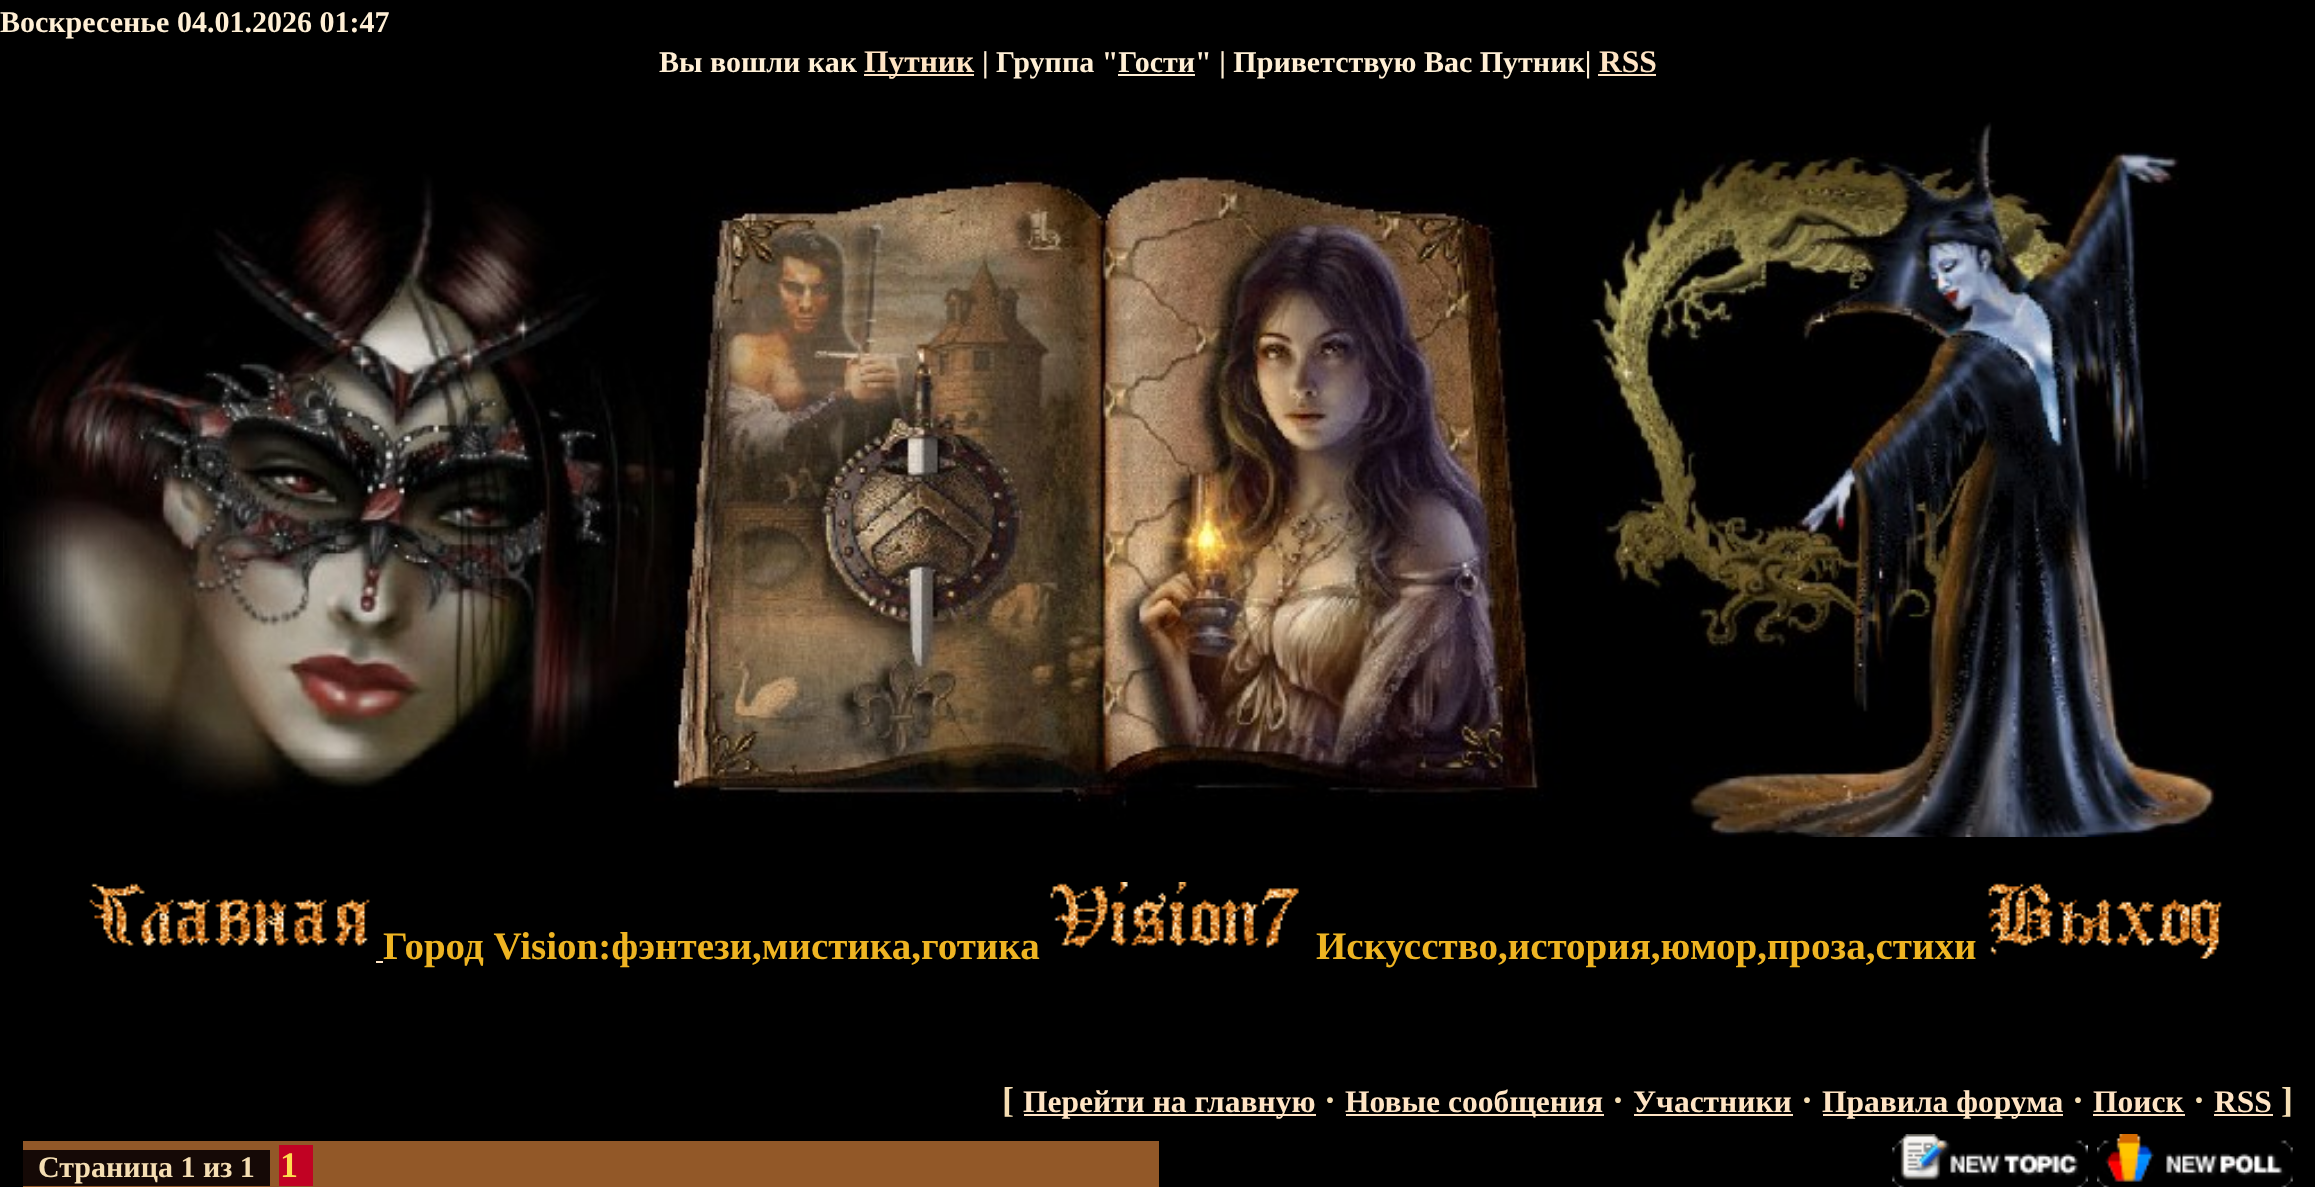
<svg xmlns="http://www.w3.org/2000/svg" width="2315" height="1187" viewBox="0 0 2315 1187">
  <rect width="100%" height="100%" fill="#000"/>
  <path d="M864 74h110v2H864z" fill="#ffe4c4"/>
  <path d="M1118 74h77v2H1118z" fill="#ffefd5"/>
  <path d="M1598 74h58v2H1598z" fill="#ffe4c4"/>
  <image x="3" y="122" width="2213" height="715" href="img/1.png"/>
  <image x="89" y="883" width="281" height="63" href="img/2.png"/>
  <path d="M376 961h7v2H376z" fill="#ffe4c4"/>
  <image x="1050" y="882" width="249" height="66" href="img/3.png"/>
  <image x="1988" y="883" width="234" height="76" href="img/4.png"/>
  <path d="M1024 1114h292v2H1024z" fill="#ffe4c4"/>
  <path d="M1346 1114h258v2H1346z" fill="#ffe4c4"/>
  <path d="M1634 1114h159v2H1634z" fill="#ffe4c4"/>
  <path d="M1823 1114h240v2H1823z" fill="#ffe4c4"/>
  <path d="M2093 1114h92v2H2093z" fill="#ffe4c4"/>
  <path d="M2214 1114h59v2H2214z" fill="#ffe4c4"/>
  <path d="M23 1141h1136v46H23z" fill="#925828"/>
  <path d="M23 1150h247v36H23z" fill="#150906"/>
  <path d="M279 1145h34v41H279z" fill="#c10223"/>
  <image x="1892" y="1134" width="196" height="53" href="img/5.png"/>
  <image x="2097" y="1134" width="196" height="53" href="img/6.png"/>
  <g font-family="Liberation Serif" font-size="30" font-weight="bold" fill="#ffefd5">
    <text x="0" y="32">Воскресенье 04.01.2026 01:47</text>
    <text x="659" y="72">Вы вошли как</text>
  </g>
  <text x="864" y="72" font-family="Liberation Serif" font-size="31.5" font-weight="bold" fill="#ffe4c4">Путник</text>
  <text x="982" y="72" font-family="Liberation Serif" font-size="30" font-weight="bold" fill="#ffefd5">| Группа "Гости" | Приветствую Вас Путник|</text>
  <text x="1599" y="72" font-family="Liberation Serif" font-size="31.5" font-weight="bold" fill="#ffe4c4">RSS</text>
  <g font-family="Liberation Serif" font-size="39" font-weight="bold" fill="#eeb422">
    <text x="383" y="959">Город Vision:фэнтези,мистика,готика</text>
    <text x="1316" y="959">Искусство,история,юмор,проза,стихи</text>
  </g>
  <text x="1002" y="1112" font-family="Liberation Serif" font-size="36" font-weight="bold" fill="#f5deb3">[</text>
  <text x="1023" y="1112" font-family="Liberation Serif" font-size="31.5" font-weight="bold" fill="#ffe4c4">Перейти на главную</text>
  <text x="1324" y="1112" font-family="Liberation Serif" font-size="36" font-weight="bold" fill="#f5deb3">·</text>
  <text x="1345" y="1112" font-family="Liberation Serif" font-size="31.5" font-weight="bold" fill="#ffe4c4">Новые сообщения</text>
  <text x="1612" y="1112" font-family="Liberation Serif" font-size="36" font-weight="bold" fill="#f5deb3">·</text>
  <text x="1633" y="1112" font-family="Liberation Serif" font-size="31.5" font-weight="bold" fill="#ffe4c4">Участники</text>
  <text x="1801" y="1112" font-family="Liberation Serif" font-size="36" font-weight="bold" fill="#f5deb3">·</text>
  <text x="1822" y="1112" font-family="Liberation Serif" font-size="31.5" font-weight="bold" fill="#ffe4c4">Правила форума</text>
  <text x="2072" y="1112" font-family="Liberation Serif" font-size="36" font-weight="bold" fill="#f5deb3">·</text>
  <text x="2093" y="1112" font-family="Liberation Serif" font-size="31.5" font-weight="bold" fill="#ffe4c4">Поиск</text>
  <text x="2193" y="1112" font-family="Liberation Serif" font-size="36" font-weight="bold" fill="#f5deb3">·</text>
  <text x="2214" y="1112" font-family="Liberation Serif" font-size="31.5" font-weight="bold" fill="#ffe4c4">RSS</text>
  <text x="2281" y="1112" font-family="Liberation Serif" font-size="36" font-weight="bold" fill="#f5deb3">]</text>
  <text x="38" y="1177" font-family="Liberation Serif" font-size="30" font-weight="bold" fill="#f5deb3">Страница 1 из 1</text>
  <text x="280" y="1177" font-family="Liberation Serif" font-size="36" font-weight="bold" fill="#ffdd50">1</text>
</svg>
